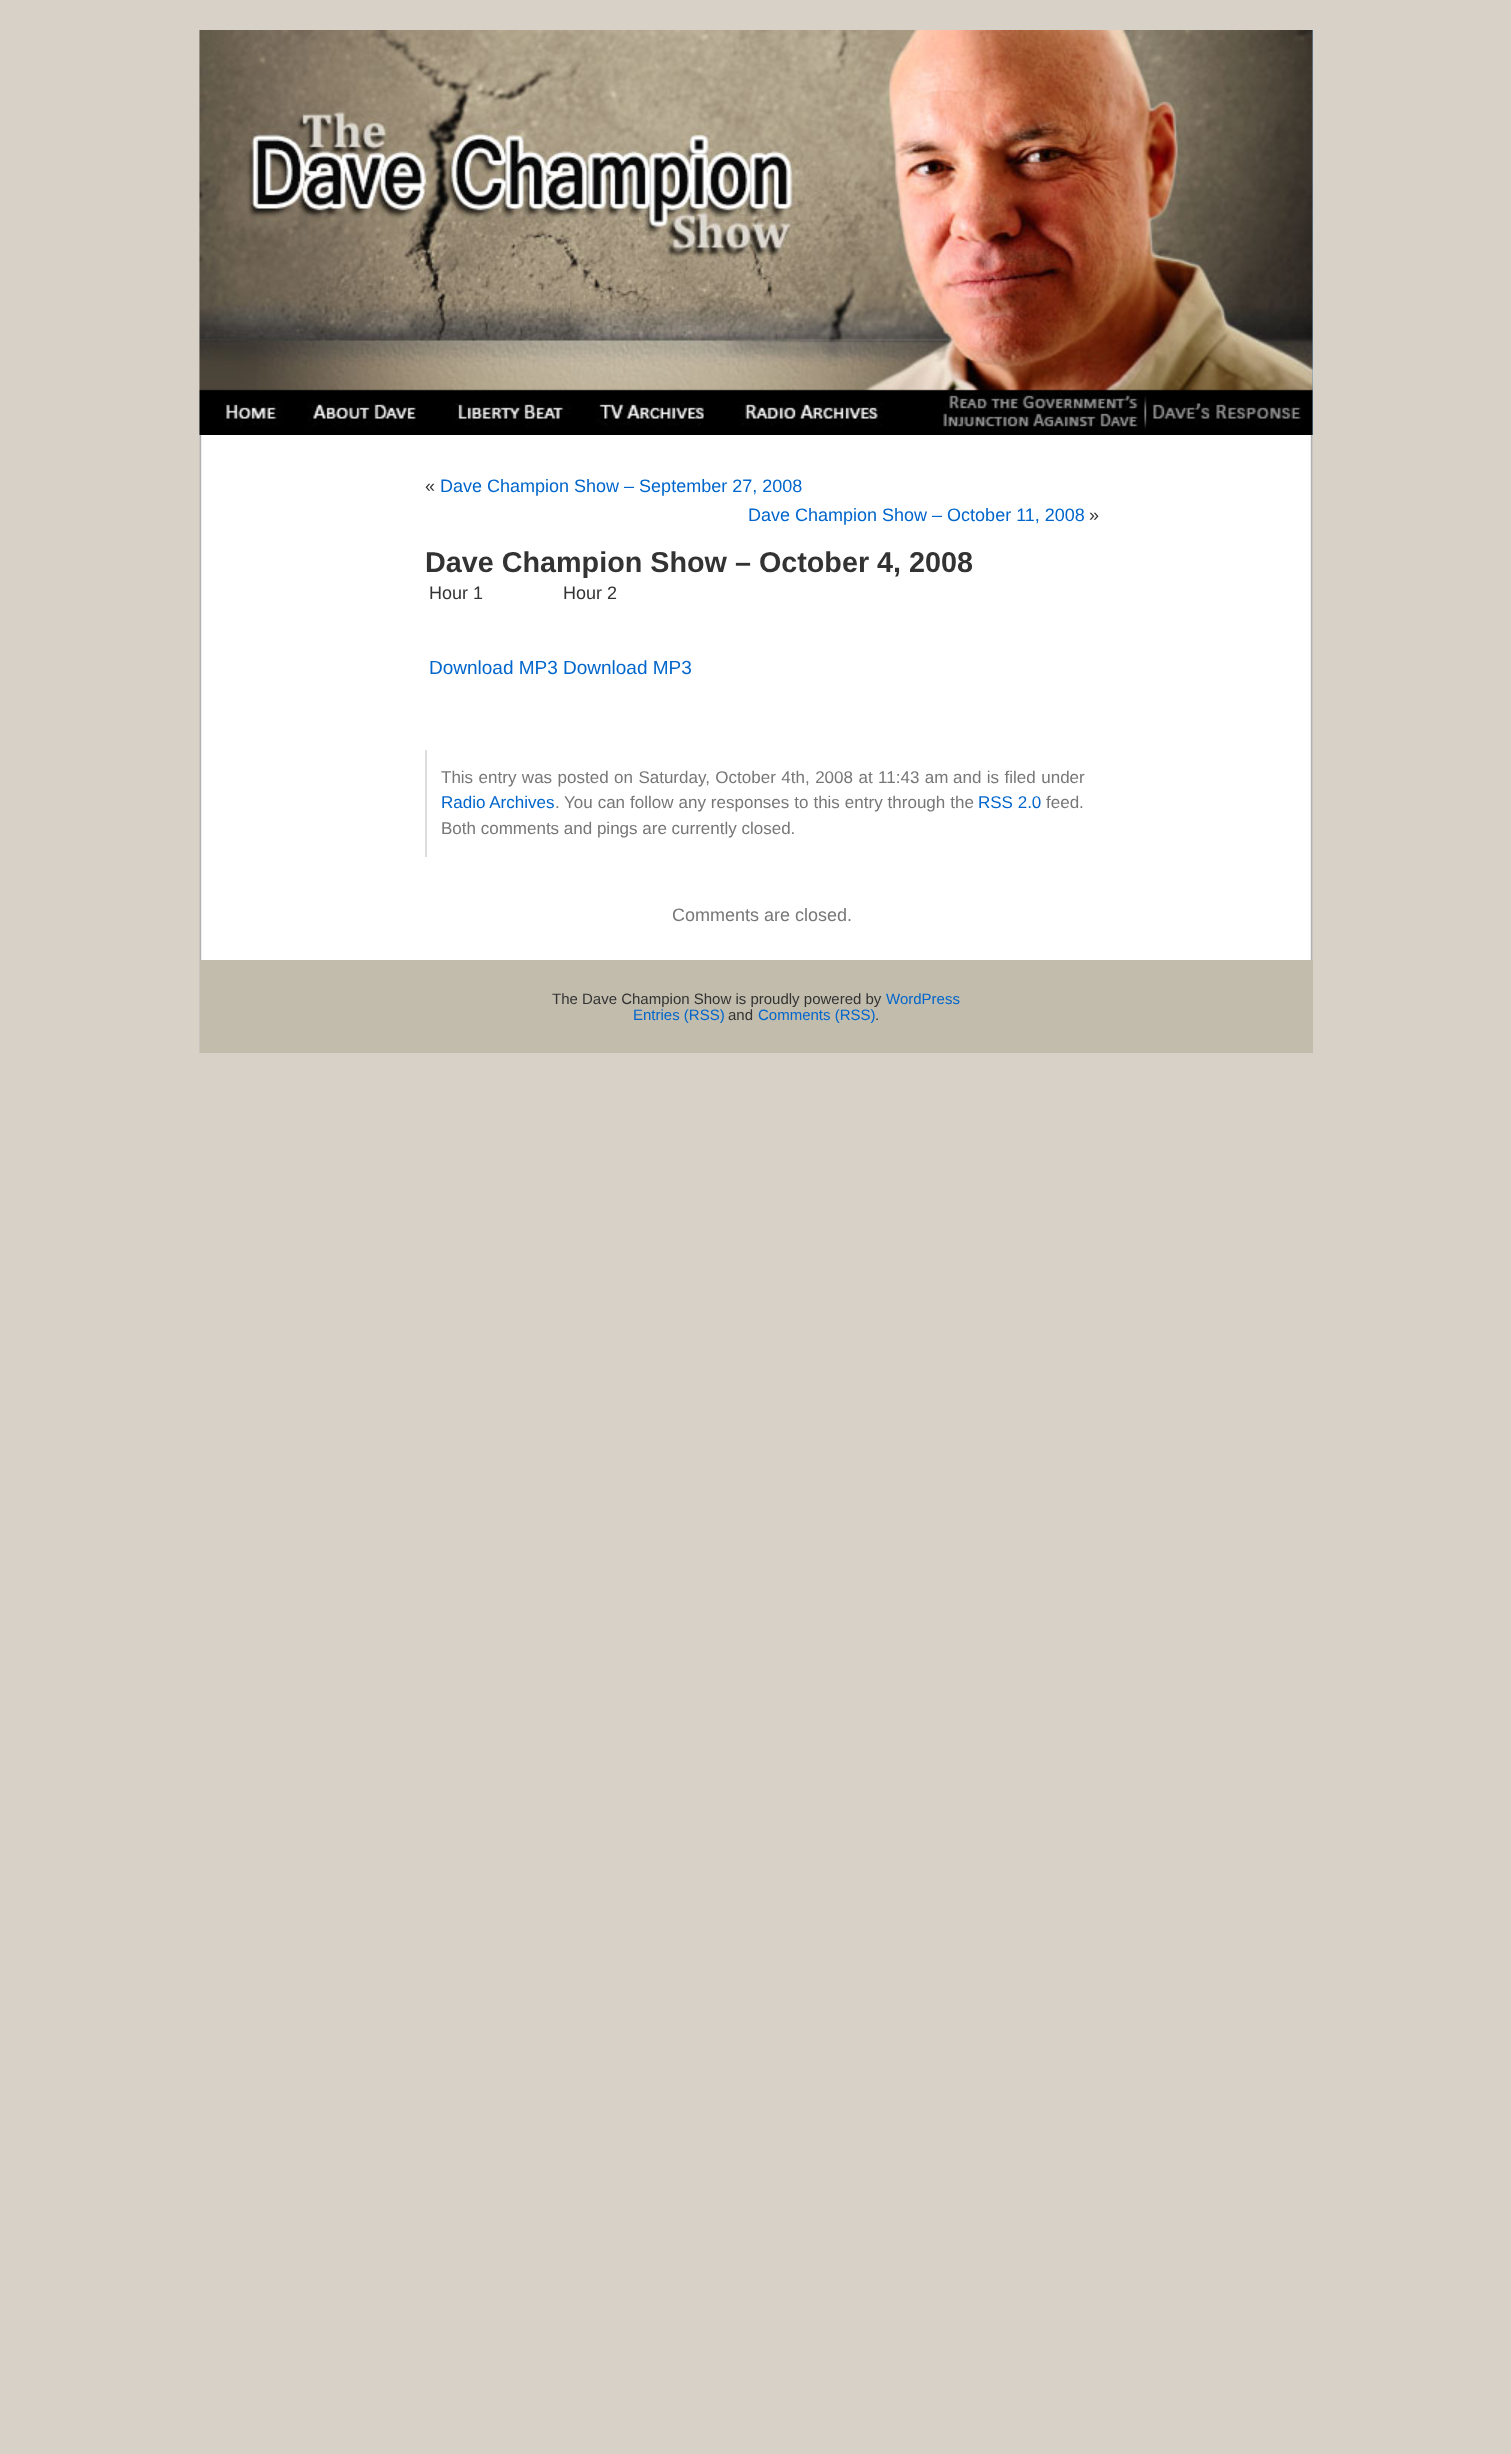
<svg xmlns="http://www.w3.org/2000/svg" width="1511" height="2454" viewBox="0 0 1511 2454">
  <rect width="100%" height="100%" fill="#d8d1c7"/>
  <image x="199" y="30" width="1114" height="1023" href="img/1.png"/>
  <path d="M1312 30h1v405H1312z" fill="#73a0c5"/>
  <image x="199" y="30" width="1114" height="405" href="img/2.png"/>
  <path d="M425 750h2v107H425z" fill="#ddd"/>
  <path d="M200 960h1113v93H200z" fill="#c2bcac"/>
  <text x="425" y="492" font-family="Liberation Sans" font-size="18" fill="#333">«</text>
  <g font-family="Liberation Sans" font-size="18" fill="#06c">
    <text x="440" y="492">Dave Champion Show – September 27, 2008</text>
    <text x="748" y="521">Dave Champion Show – October 11, 2008</text>
  </g>
  <text x="1089" y="521" font-family="Liberation Sans" font-size="18" fill="#333">»</text>
  <text x="425" y="572" font-family="Liberation Sans" font-size="28.75" font-weight="bold" fill="#333">Dave Champion Show – October 4, 2008</text>
  <g font-family="Liberation Sans" font-size="18" fill="#333">
    <text x="429" y="599">Hour 1</text>
    <text x="563" y="599">Hour 2</text>
  </g>
  <g font-family="Liberation Sans" font-size="19" fill="#06c">
    <text x="429" y="674">Download MP3</text>
    <text x="563" y="674">Download MP3</text>
  </g>
  <g font-family="Liberation Sans" font-size="17" fill="#777">
    <text x="441" y="783" word-spacing="0.75">This entry was posted</text>
    <text x="614" y="783" word-spacing="0.75">on Saturday, October 4th, 2008 at 11:43 am</text>
    <text x="953" y="783" word-spacing="0.75">and is filed under</text>
  </g>
  <text x="441" y="808" font-family="Liberation Sans" font-size="17" fill="#06c">Radio Archives</text>
  <g font-family="Liberation Sans" font-size="17" fill="#777">
    <text x="555" y="808">.</text>
    <text x="564" y="808" word-spacing="0.25">You can follow any responses to this entry through the</text>
  </g>
  <text x="978" y="808" font-family="Liberation Sans" font-size="17" fill="#06c">RSS 2.0</text>
  <g font-family="Liberation Sans" font-size="17" fill="#777">
    <text x="1046" y="808">feed.</text>
    <text x="441" y="834">Both comments and pings are currently closed.</text>
  </g>
  <text x="672" y="921" font-family="Liberation Sans" font-size="18" fill="#777">Comments are closed.</text>
  <text x="552" y="1004" font-family="Liberation Sans" font-size="15" fill="#333">The Dave Champion Show is proudly powered by</text>
  <g font-family="Liberation Sans" font-size="15" fill="#06c">
    <text x="886" y="1004">WordPress</text>
    <text x="633" y="1020">Entries (RSS)</text>
  </g>
  <text x="728" y="1020" font-family="Liberation Sans" font-size="15" fill="#333">and</text>
  <text x="758" y="1020" font-family="Liberation Sans" font-size="15" fill="#06c">Comments (RSS)</text>
  <text x="875" y="1020" font-family="Liberation Sans" font-size="15" fill="#333">.</text>
</svg>
